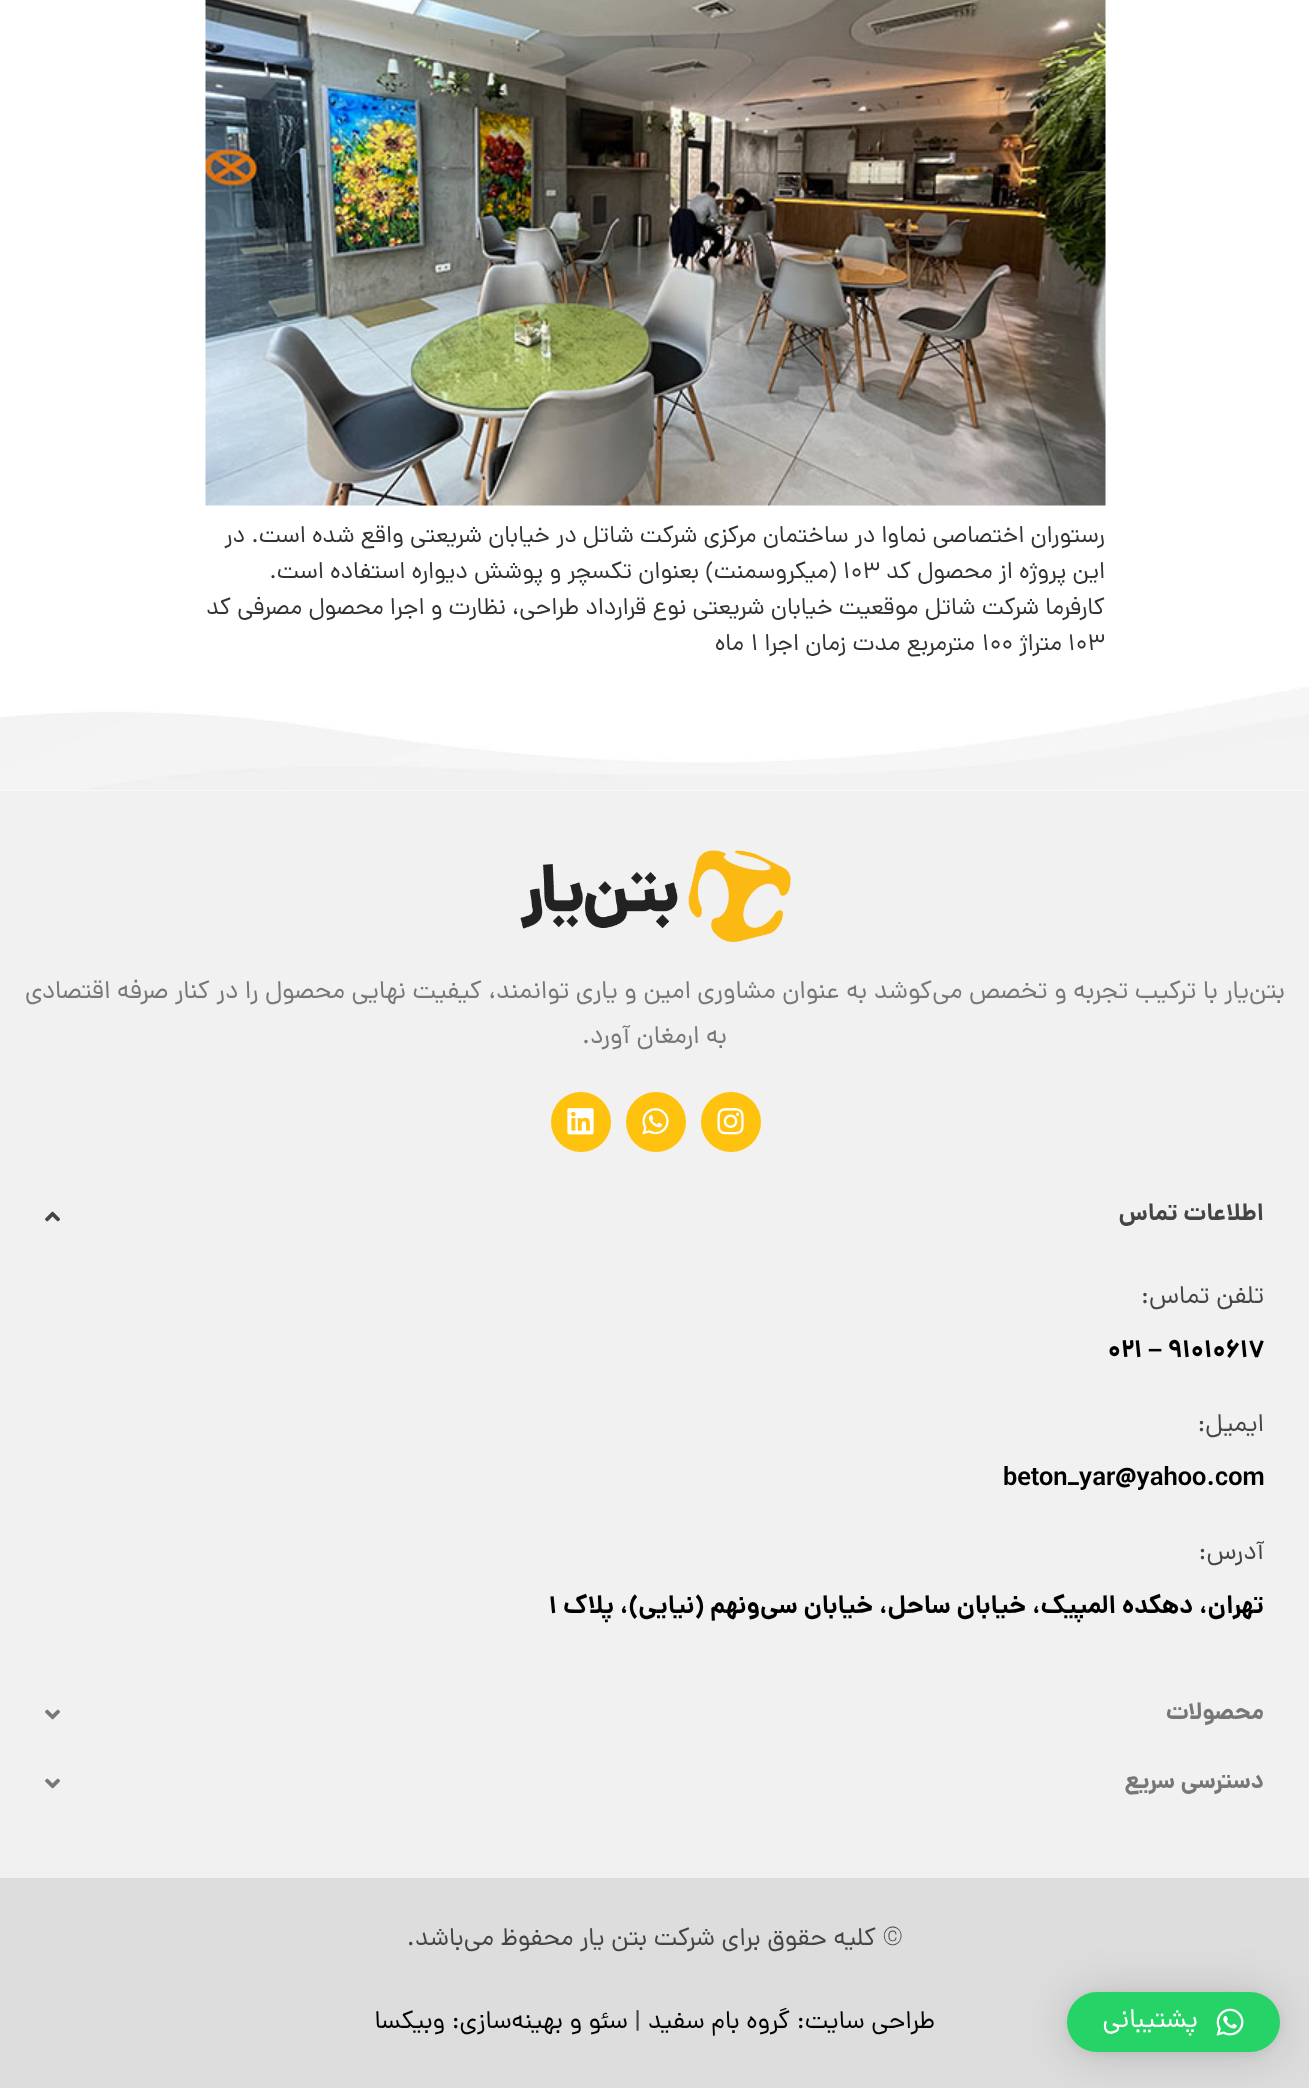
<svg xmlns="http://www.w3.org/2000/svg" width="1309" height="2088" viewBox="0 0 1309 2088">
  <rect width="100%" height="100%" fill="#fff"/>
  <image x="205" y="0" width="901" height="506" href="img/1.png"/>
  <image x="0" y="687" width="1309" height="104" href="img/2.png"/>
  <path d="M0 791h1309v1087H0z" fill="#f1f1f1"/>
  <image x="520" y="850" width="271" height="92" href="img/3.png"/>
  <circle cx="731" cy="1122" r="30" fill="#ffc20e"/>
  <image x="717" y="1108" width="27" height="27" href="img/4.png"/>
  <circle cx="656" cy="1122" r="30" fill="#ffc20e"/>
  <image x="642" y="1108" width="27" height="27" href="img/5.png"/>
  <circle cx="581" cy="1122" r="30" fill="#ffc20e"/>
  <image x="567" y="1108" width="27" height="27" href="img/6.png"/>
  <image x="45" y="1211" width="15" height="11" href="img/7.png"/>
  <image x="45" y="1709" width="15" height="11" href="img/8.png"/>
  <image x="45" y="1778" width="15" height="11" href="img/8.png"/>
  <path d="M0 1878h1309v210H0z" fill="#ddd"/>
  <rect x="1067" y="1995" width="213" height="60" rx="30" fill="#00000029" filter="blur(24px)"/>
  <rect x="1067" y="1994" width="213" height="60" rx="30" fill="#0000000f" filter="blur(4.5px)"/>
  <rect x="1067" y="1992" width="213" height="60" rx="30" fill="#25d366"/>
  <image x="1216" y="2008" width="28" height="28" href="img/9.png"/>
  <g font-family="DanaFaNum" font-size="24" direction="rtl" fill="#333">
    <text x="1105" y="542">رستوران اختصاصی نماوا در ساختمان مرکزی شرکت شاتل در خیابان شریعتی واقع شده است. در</text>
    <text x="1105" y="578">این پروژه از محصول کد</text>
  </g>
  <text x="843" y="578" font-family="DanaFaNum" font-size="24" fill="#333">۱۰۳</text>
  <g font-family="DanaFaNum" font-size="24" direction="rtl" fill="#333">
    <text x="837" y="578">(میکروسمنت) بعنوان تکسچر و پوشش دیواره استفاده است.</text>
    <text x="1105" y="614">کارفرما شرکت شاتل موقعیت خیابان شریعتی نوع قرارداد طراحی، نظارت و اجرا محصول مصرفی کد</text>
  </g>
  <text x="1068" y="650" font-family="DanaFaNum" font-size="24" fill="#333">۱۰۳</text>
  <text x="1062" y="650" font-family="DanaFaNum" font-size="24" direction="rtl" fill="#333">متراژ</text>
  <text x="982" y="650" font-family="DanaFaNum" font-size="24" fill="#333">۱۰۰</text>
  <text x="975" y="650" font-family="DanaFaNum" font-size="24" direction="rtl" fill="#333">مترمربع مدت زمان اجرا</text>
  <text x="751" y="650" font-family="DanaFaNum" font-size="24" fill="#333">۱</text>
  <text x="744" y="650" font-family="DanaFaNum" font-size="24" direction="rtl" fill="#333">ماه</text>
  <g font-family="DanaFaNum" font-size="25.5" direction="rtl" fill="#777">
    <text x="1285" y="998">بتن‌یار با ترکیب تجربه و تخصص می‌کوشد به عنوان مشاوری امین و یاری توانمند، کیفیت نهایی محصول را در کنار صرفه اقتصادی</text>
    <text x="727" y="1043">به ارمغان آورد.</text>
  </g>
  <text x="1264" y="1220" font-family="DanaFaNum" font-size="24" font-weight="bold" direction="rtl" fill="#444">اطلاعات تماس</text>
  <text x="1264" y="1303" font-family="DanaFaNum" font-size="25.5" direction="rtl" fill="#444">تلفن تماس:</text>
  <text x="1168" y="1357" font-family="DanaFaNum" font-size="25.5" font-weight="bold" fill="#000">91010617</text>
  <text x="1148" y="1357" font-family="Liberation Sans" font-size="25.5" font-weight="bold" fill="#000">–</text>
  <text x="1108" y="1357" font-family="DanaFaNum" font-size="25.5" font-weight="bold" fill="#000">021</text>
  <text x="1264" y="1431" font-family="DanaFaNum" font-size="25.5" direction="rtl" fill="#444">ایمیل:</text>
  <text x="1003" y="1485" font-family="DanaFaNum" font-size="25.5" font-weight="bold" fill="#000">beton_yar@yahoo.com</text>
  <text x="1264" y="1559" font-family="DanaFaNum" font-size="25.5" direction="rtl" fill="#444">آدرس:</text>
  <text x="1264" y="1613" font-family="DanaFaNum" font-size="25.5" font-weight="bold" direction="rtl" fill="#000">تهران، دهکده المپیک، خیابان ساحل، خیابان سی‌ونهم (نیایی)، پلاک</text>
  <text x="549" y="1613" font-family="DanaFaNum" font-size="25.5" font-weight="bold" fill="#000">1</text>
  <g font-family="DanaFaNum" font-size="24" font-weight="bold" direction="rtl" fill="#777">
    <text x="1264" y="1719">محصولات</text>
    <text x="1264" y="1788">دسترسی سریع</text>
  </g>
  <text x="903" y="1945" font-family="DanaFaNum" font-size="25.5" direction="rtl" fill="#444">© کلیه حقوق برای شرکت بتن یار محفوظ می‌باشد.</text>
  <text x="935" y="2028" font-family="DanaFaNum" font-size="25.5" direction="rtl" fill="#000">طراحی سایت: گروه بام سفید</text>
  <text x="634" y="2028" font-family="DanaFaNum" font-size="25.5" fill="#444">|</text>
  <text x="628" y="2028" font-family="DanaFaNum" font-size="25.5" direction="rtl" fill="#000">سئو و بهینه‌سازی: وبیکسا</text>
  <text x="1198" y="2027" font-family="DanaFaNum" font-size="27" direction="rtl" fill="#fff">پشتیبانی</text>
</svg>
